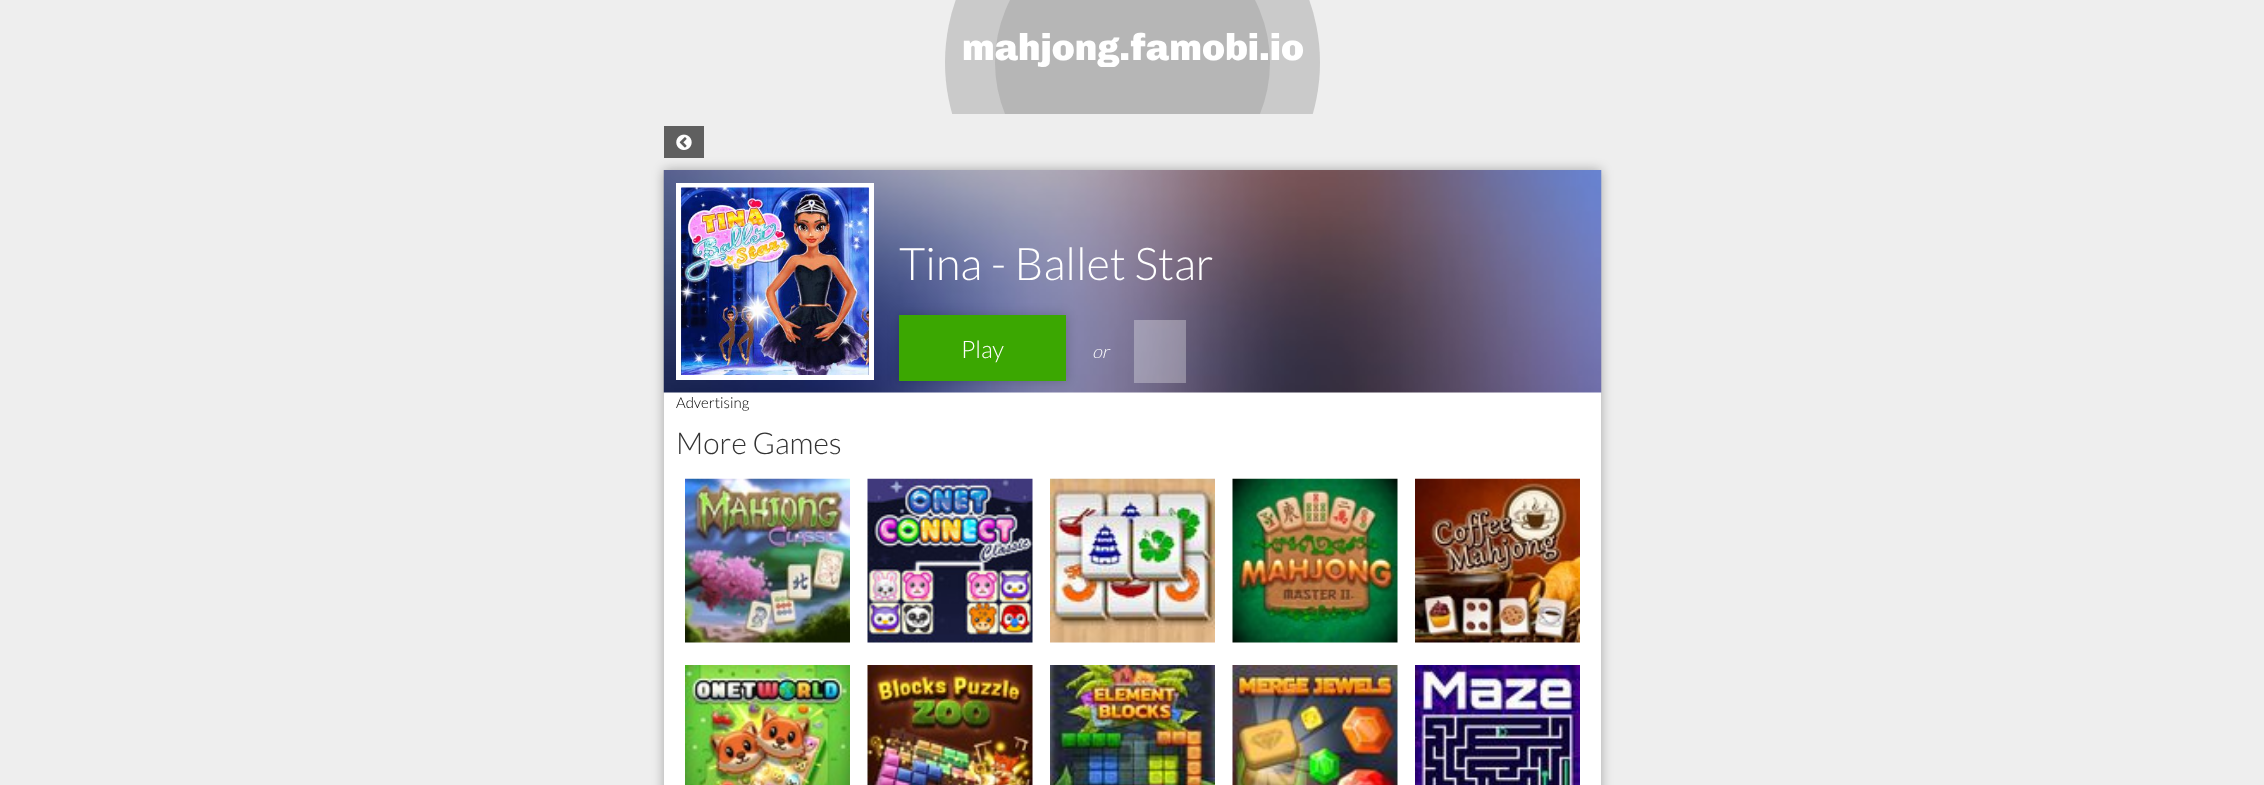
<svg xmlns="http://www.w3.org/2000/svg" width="2264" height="785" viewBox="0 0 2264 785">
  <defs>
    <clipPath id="clip1"><path d="M726 0h813v114H726z"/></clipPath>
  </defs>
  <rect width="100%" height="100%" fill="#eee"/>
  <path d="M664 170h937v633H664z" fill="#0000004d" filter="blur(6px)"/>
  <path d="M664 126h40v32H664z" fill="#5f5f5f"/>
  <image x="676" y="134" width="16" height="16" href="img/1.png"/>
  <path d="M664 392h937v393H664z" fill="#fff"/>
  <image x="663" y="170" width="939" height="223" href="img/2.png"/>
  <path d="M678.5 185.5h193v192H678.5z" fill="none" stroke="#fff" stroke-width="5"/>
  <image x="681" y="187" width="188" height="188" href="img/3.png"/>
  <path d="M899 315h167v66H899z" fill="#00000033" filter="blur(6px)"/>
  <path d="M899 315h167v66H899z" fill="#3ba701"/>
  <path d="M1134 320h52v63H1134z" fill="#ffffff4d"/>
  <image x="685" y="478" width="165" height="165" href="img/4.png"/>
  <image x="867" y="478" width="166" height="165" href="img/5.png"/>
  <image x="1050" y="478" width="165" height="165" href="img/6.png"/>
  <image x="1232" y="478" width="166" height="165" href="img/7.png"/>
  <image x="1415" y="478" width="165" height="165" href="img/8.png"/>
  <image x="685" y="665" width="165" height="120" href="img/9.png"/>
  <image x="867" y="665" width="166" height="120" href="img/10.png"/>
  <image x="1050" y="665" width="165" height="120" href="img/11.png"/>
  <image x="1232" y="665" width="166" height="120" href="img/12.png"/>
  <image x="1415" y="665" width="165" height="120" href="img/13.png"/>
  <text x="899" y="280" font-family="Lato" font-size="45" font-weight="300" fill="#fff">Tina - Ballet Star</text>
  <g clip-path="url(#clip1)">
    <circle cx="1132.5" cy="62.5" r="187.5" fill="#cacaca"/>
    <circle cx="1132.5" cy="62.5" r="137.5" fill="#b6b6b6"/>
  </g>
  <text x="962" y="60" font-family="Chivo" font-size="37.5" font-weight="900" fill="#fff">mahjong.famobi.io</text>
  <text x="961" y="358" font-family="Lato" font-size="24" font-weight="300" fill="#fff">Play</text>
  <text x="1092" y="358" font-family="Lato" font-size="18" font-weight="300" font-style="italic" fill="#fff">or</text>
  <text x="676" y="408" font-family="Lato" font-size="15" font-weight="300" fill="#000">Advertising</text>
  <text x="676" y="454" font-family="Lato" font-size="30" font-weight="300" fill="#333">More Games</text>
</svg>
